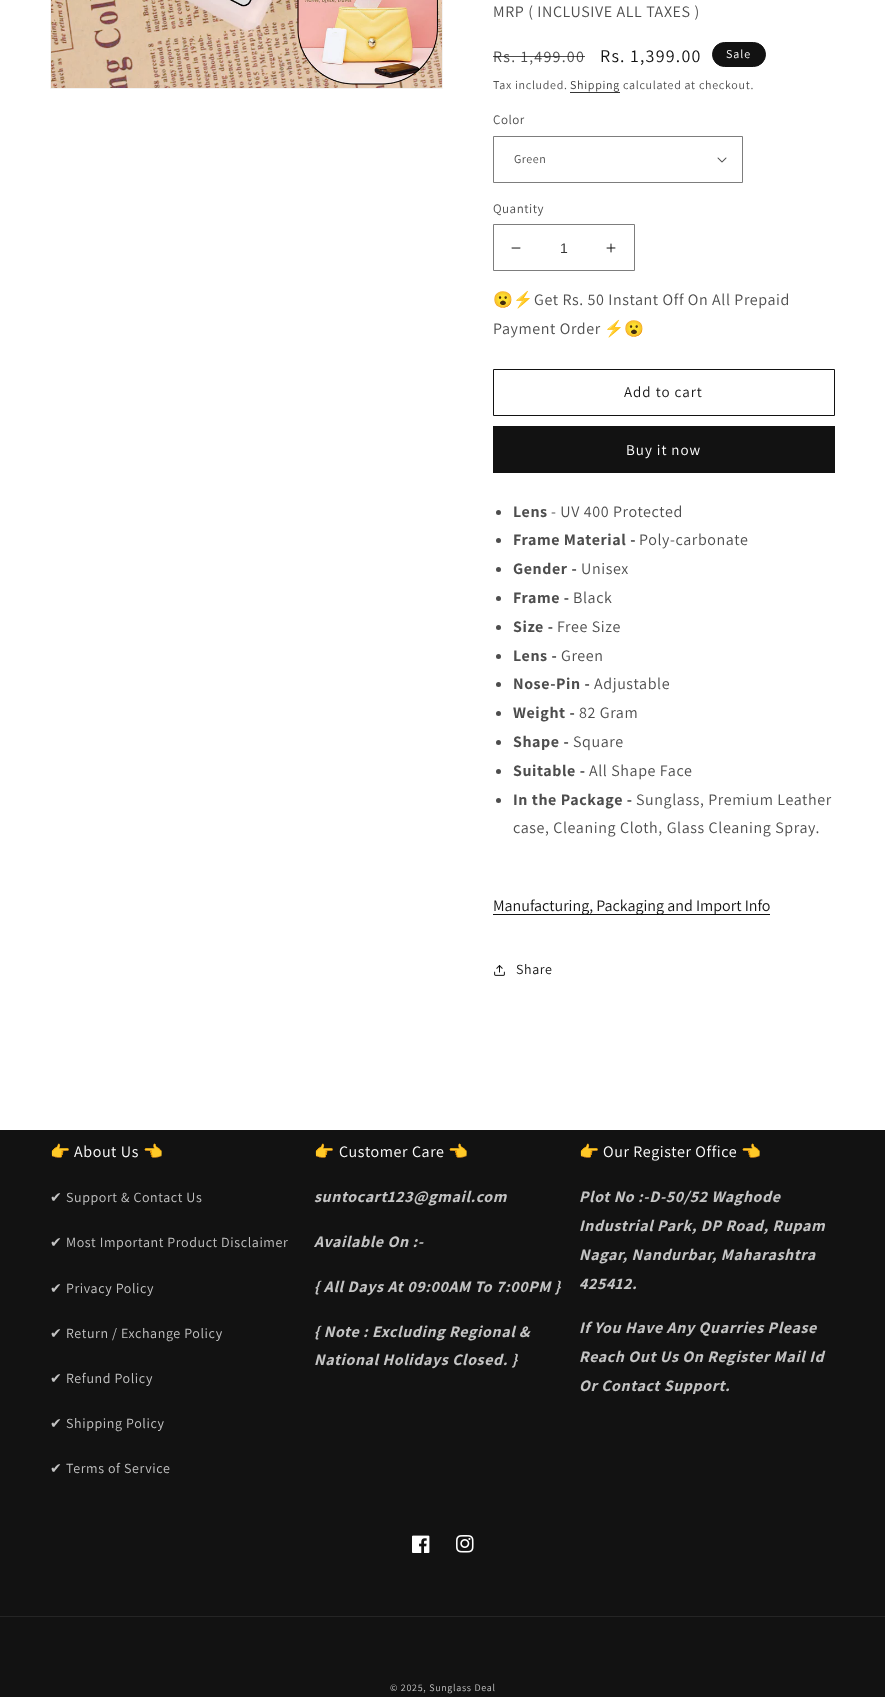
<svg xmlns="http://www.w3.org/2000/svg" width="885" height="1697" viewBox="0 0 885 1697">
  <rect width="100%" height="100%" fill="#fff"/>
  <path d="M50.5 -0.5h392v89H50.5z" fill="none" stroke="#f3f3f3"/>
  <image x="51" y="0" width="391" height="88" href="img/1.png"/>
  <rect x="712.5" y="42.5" width="53" height="24" rx="12" fill="#121212" stroke="#121212"/>
  <path d="M570 92h50v1H570z" fill="#363636"/>
  <image x="717" y="157" width="10" height="6" href="img/2.png"/>
  <path d="M493.5 136.5h249v46H493.5z" fill="none" stroke="#7d7d7d"/>
  <image x="511" y="247" width="10" height="2" href="img/3.png"/>
  <image x="606" y="243" width="10" height="10" href="img/4.png"/>
  <path d="M493.5 224.5h141v46H493.5z" fill="none" stroke="#7d7d7d"/>
  <path d="M493.5 369.5h341v46H493.5z" fill="none" stroke="#121212"/>
  <path d="M493 426h342v47H493z" fill="#121212"/>
  <circle cx="498.5" cy="512.5" r="2.5" fill="#4d4d4d"/>
  <circle cx="498.5" cy="540.5" r="2.5" fill="#4d4d4d"/>
  <circle cx="498.5" cy="569.5" r="2.5" fill="#4d4d4d"/>
  <circle cx="498.5" cy="598.5" r="2.5" fill="#4d4d4d"/>
  <circle cx="498.5" cy="627.5" r="2.5" fill="#4d4d4d"/>
  <circle cx="498.5" cy="656.5" r="2.5" fill="#4d4d4d"/>
  <circle cx="498.5" cy="684.5" r="2.5" fill="#4d4d4d"/>
  <circle cx="498.5" cy="713.5" r="2.5" fill="#4d4d4d"/>
  <circle cx="498.5" cy="742.5" r="2.5" fill="#4d4d4d"/>
  <circle cx="498.5" cy="771.5" r="2.5" fill="#4d4d4d"/>
  <circle cx="498.5" cy="800.5" r="2.5" fill="#4d4d4d"/>
  <path d="M493 914h277v1H493z" fill="#121212"/>
  <image x="494" y="965" width="11" height="11" href="img/5.png"/>
  <path d="M0 1130h885v567H0z" fill="#121212"/>
  <image x="412" y="1535" width="18" height="18" href="img/6.png"/>
  <image x="456" y="1535" width="18" height="18" href="img/7.png"/>
  <path d="M0 1616h885v1H0z" fill="#252525"/>
  <text x="493" y="17" font-family="Assistant" font-size="16" letter-spacing="0.6" fill="#4d4d4d">MRP ( INCLUSIVE ALL TAXES )</text>
  <text x="493" y="62" font-family="Assistant" font-size="16" letter-spacing="1.25" fill="#4d4d4d">Rs. 1,499.00</text>
  <path d="M493 56h92v1H493z" fill="#121212bf"/>
  <text x="600" y="62" font-family="Assistant" font-size="18" letter-spacing="1.25" fill="#121212">Rs. 1,399.00</text>
  <text x="726" y="58" font-family="Assistant" font-size="12" letter-spacing="1" fill="#fff">Sale</text>
  <text x="493" y="89" font-family="Assistant" font-size="12" letter-spacing="0.7" fill="#4d4d4d">Tax included.</text>
  <text x="570" y="89" font-family="Assistant" font-size="12" letter-spacing="0.7" fill="#363636">Shipping</text>
  <text x="623" y="89" font-family="Assistant" font-size="12" letter-spacing="0.7" fill="#4d4d4d">calculated at checkout.</text>
  <text x="493" y="124" font-family="Assistant" font-size="13" letter-spacing="0.5" fill="#4d4d4d">Color</text>
  <text x="514" y="163" font-family="Assistant" font-size="12" letter-spacing="0.5" fill="#4d4d4d">Green</text>
  <text x="493" y="213" font-family="Assistant" font-size="13" letter-spacing="0.5" fill="#4d4d4d">Quantity</text>
  <text x="560" y="253" font-family="Liberation Sans" font-size="14" fill="#363636">1</text>
  <text x="493" y="305" font-family="Noto Color Emoji" font-size="16" letter-spacing="0.6" fill="#4d4d4d">😮⚡</text>
  <g font-family="Assistant" font-size="16" letter-spacing="0.6" fill="#4d4d4d">
    <text x="534" y="305">Get Rs. 50 Instant Off On All Prepaid</text>
    <text x="493" y="334">Payment Order</text>
  </g>
  <text x="604" y="334" font-family="Noto Color Emoji" font-size="16" letter-spacing="0.6" fill="#4d4d4d">⚡😮</text>
  <text x="624" y="397" font-family="Assistant" font-size="15" letter-spacing="1" fill="#121212">Add to cart</text>
  <text x="626" y="455" font-family="Assistant" font-size="15" letter-spacing="1" fill="#fff">Buy it now</text>
  <text x="513" y="517" font-family="Assistant" font-size="16" font-weight="bold" letter-spacing="0.6" fill="#4d4d4d">Lens</text>
  <text x="551" y="517" font-family="Assistant" font-size="16" letter-spacing="0.6" fill="#4d4d4d">- UV 400 Protected</text>
  <text x="513" y="545" font-family="Assistant" font-size="16" font-weight="bold" letter-spacing="0.6" fill="#4d4d4d">Frame Material -</text>
  <text x="639" y="545" font-family="Assistant" font-size="16" letter-spacing="0.6" fill="#4d4d4d">Poly-carbonate</text>
  <text x="513" y="574" font-family="Assistant" font-size="16" font-weight="bold" letter-spacing="0.6" fill="#4d4d4d">Gender -</text>
  <text x="581" y="574" font-family="Assistant" font-size="16" letter-spacing="0.6" fill="#4d4d4d">Unisex</text>
  <text x="513" y="603" font-family="Assistant" font-size="16" font-weight="bold" letter-spacing="0.6" fill="#4d4d4d">Frame -</text>
  <text x="573" y="603" font-family="Assistant" font-size="16" letter-spacing="0.6" fill="#4d4d4d">Black</text>
  <text x="513" y="632" font-family="Assistant" font-size="16" font-weight="bold" letter-spacing="0.6" fill="#4d4d4d">Size -</text>
  <text x="557" y="632" font-family="Assistant" font-size="16" letter-spacing="0.6" fill="#4d4d4d">Free Size</text>
  <text x="513" y="661" font-family="Assistant" font-size="16" font-weight="bold" letter-spacing="0.6" fill="#4d4d4d">Lens -</text>
  <text x="561" y="661" font-family="Assistant" font-size="16" letter-spacing="0.6" fill="#4d4d4d">Green</text>
  <text x="513" y="689" font-family="Assistant" font-size="16" font-weight="bold" letter-spacing="0.6" fill="#4d4d4d">Nose-Pin -</text>
  <text x="594" y="689" font-family="Assistant" font-size="16" letter-spacing="0.6" fill="#4d4d4d">Adjustable</text>
  <text x="513" y="718" font-family="Assistant" font-size="16" font-weight="bold" letter-spacing="0.6" fill="#4d4d4d">Weight -</text>
  <text x="579" y="718" font-family="Assistant" font-size="16" letter-spacing="0.6" fill="#4d4d4d">82 Gram</text>
  <text x="513" y="747" font-family="Assistant" font-size="16" font-weight="bold" letter-spacing="0.6" fill="#4d4d4d">Shape -</text>
  <text x="573" y="747" font-family="Assistant" font-size="16" letter-spacing="0.6" fill="#4d4d4d">Square</text>
  <text x="513" y="776" font-family="Assistant" font-size="16" font-weight="bold" letter-spacing="0.6" fill="#4d4d4d">Suitable -</text>
  <text x="589" y="776" font-family="Assistant" font-size="16" letter-spacing="0.6" fill="#4d4d4d">All Shape Face</text>
  <text x="513" y="805" font-family="Assistant" font-size="16" font-weight="bold" letter-spacing="0.6" fill="#4d4d4d">In the Package -</text>
  <g font-family="Assistant" font-size="16" letter-spacing="0.6" fill="#4d4d4d">
    <text x="636" y="805">Sunglass, Premium Leather</text>
    <text x="513" y="833">case, Cleaning Cloth, Glass Cleaning Spray.</text>
  </g>
  <text x="493" y="911" font-family="Assistant" font-size="16" fill="#121212">Manufacturing, Packaging and Import Info</text>
  <text x="516" y="974" font-family="Assistant" font-size="14" letter-spacing="0.6" fill="#121212">Share</text>
  <text x="50" y="1157" font-family="Noto Color Emoji" font-size="16" letter-spacing="0.6" fill="#fff">👉</text>
  <text x="74" y="1157" font-family="Assistant" font-size="16" letter-spacing="0.6" fill="#fff">About Us</text>
  <text x="143" y="1157" font-family="Noto Color Emoji" font-size="16" letter-spacing="0.6" fill="#fff">👈</text>
  <text x="50" y="1202" font-family="DejaVu Sans" font-size="14" letter-spacing="0.6" fill="#c4c4c4">✔</text>
  <text x="66" y="1202" font-family="Assistant" font-size="14" letter-spacing="0.6" fill="#c4c4c4">Support &amp; Contact Us</text>
  <text x="50" y="1247" font-family="DejaVu Sans" font-size="14" letter-spacing="0.6" fill="#c4c4c4">✔</text>
  <text x="66" y="1247" font-family="Assistant" font-size="14" letter-spacing="0.6" fill="#c4c4c4">Most Important Product Disclaimer</text>
  <text x="50" y="1293" font-family="DejaVu Sans" font-size="14" letter-spacing="0.6" fill="#c4c4c4">✔</text>
  <text x="66" y="1293" font-family="Assistant" font-size="14" letter-spacing="0.6" fill="#c4c4c4">Privacy Policy</text>
  <text x="50" y="1338" font-family="DejaVu Sans" font-size="14" letter-spacing="0.6" fill="#c4c4c4">✔</text>
  <text x="66" y="1338" font-family="Assistant" font-size="14" letter-spacing="0.6" fill="#c4c4c4">Return / Exchange Policy</text>
  <text x="50" y="1383" font-family="DejaVu Sans" font-size="14" letter-spacing="0.6" fill="#c4c4c4">✔</text>
  <text x="66" y="1383" font-family="Assistant" font-size="14" letter-spacing="0.6" fill="#c4c4c4">Refund Policy</text>
  <text x="50" y="1428" font-family="DejaVu Sans" font-size="14" letter-spacing="0.6" fill="#c4c4c4">✔</text>
  <text x="66" y="1428" font-family="Assistant" font-size="14" letter-spacing="0.6" fill="#c4c4c4">Shipping Policy</text>
  <text x="50" y="1473" font-family="DejaVu Sans" font-size="14" letter-spacing="0.6" fill="#c4c4c4">✔</text>
  <text x="66" y="1473" font-family="Assistant" font-size="14" letter-spacing="0.6" fill="#c4c4c4">Terms of Service</text>
  <text x="314" y="1157" font-family="Noto Color Emoji" font-size="16" letter-spacing="0.6" fill="#fff">👉</text>
  <text x="339" y="1157" font-family="Assistant" font-size="16" letter-spacing="0.6" fill="#fff">Customer Care</text>
  <text x="448" y="1157" font-family="Noto Color Emoji" font-size="16" letter-spacing="0.6" fill="#fff">👈</text>
  <g font-family="Assistant" font-size="16" font-weight="bold" font-style="italic" letter-spacing="0.6" fill="#c4c4c4">
    <text x="314" y="1202">suntocart123@gmail.com</text>
    <text x="314" y="1247">Available On :-</text>
    <text x="314" y="1292">{ All Days At 09:00AM To 7:00PM }</text>
    <text x="314" y="1337">{ Note : Excluding Regional &amp;</text>
    <text x="314" y="1365">National Holidays Closed. }</text>
  </g>
  <text x="579" y="1157" font-family="Noto Color Emoji" font-size="16" letter-spacing="0.6" fill="#fff">👉</text>
  <text x="603" y="1157" font-family="Assistant" font-size="16" letter-spacing="0.6" fill="#fff">Our Register Office</text>
  <text x="741" y="1157" font-family="Noto Color Emoji" font-size="16" letter-spacing="0.6" fill="#fff">👈</text>
  <g font-family="Assistant" font-size="16" font-weight="bold" font-style="italic" letter-spacing="0.6" fill="#c4c4c4">
    <text x="579" y="1202">Plot No :-D-50/52 Waghode</text>
    <text x="579" y="1231">Industrial Park, DP Road, Rupam</text>
    <text x="579" y="1260">Nagar, Nandurbar, Maharashtra</text>
    <text x="579" y="1289">425412.</text>
    <text x="579" y="1333">If You Have Any Quarries Please</text>
    <text x="579" y="1362">Reach Out Us On Register Mail Id</text>
    <text x="579" y="1391">Or Contact Support.</text>
  </g>
  <text x="390" y="1691" font-family="Assistant" font-size="10" letter-spacing="0.7" fill="#c4c4c4">© 2025, Sunglass Deal</text>
</svg>
